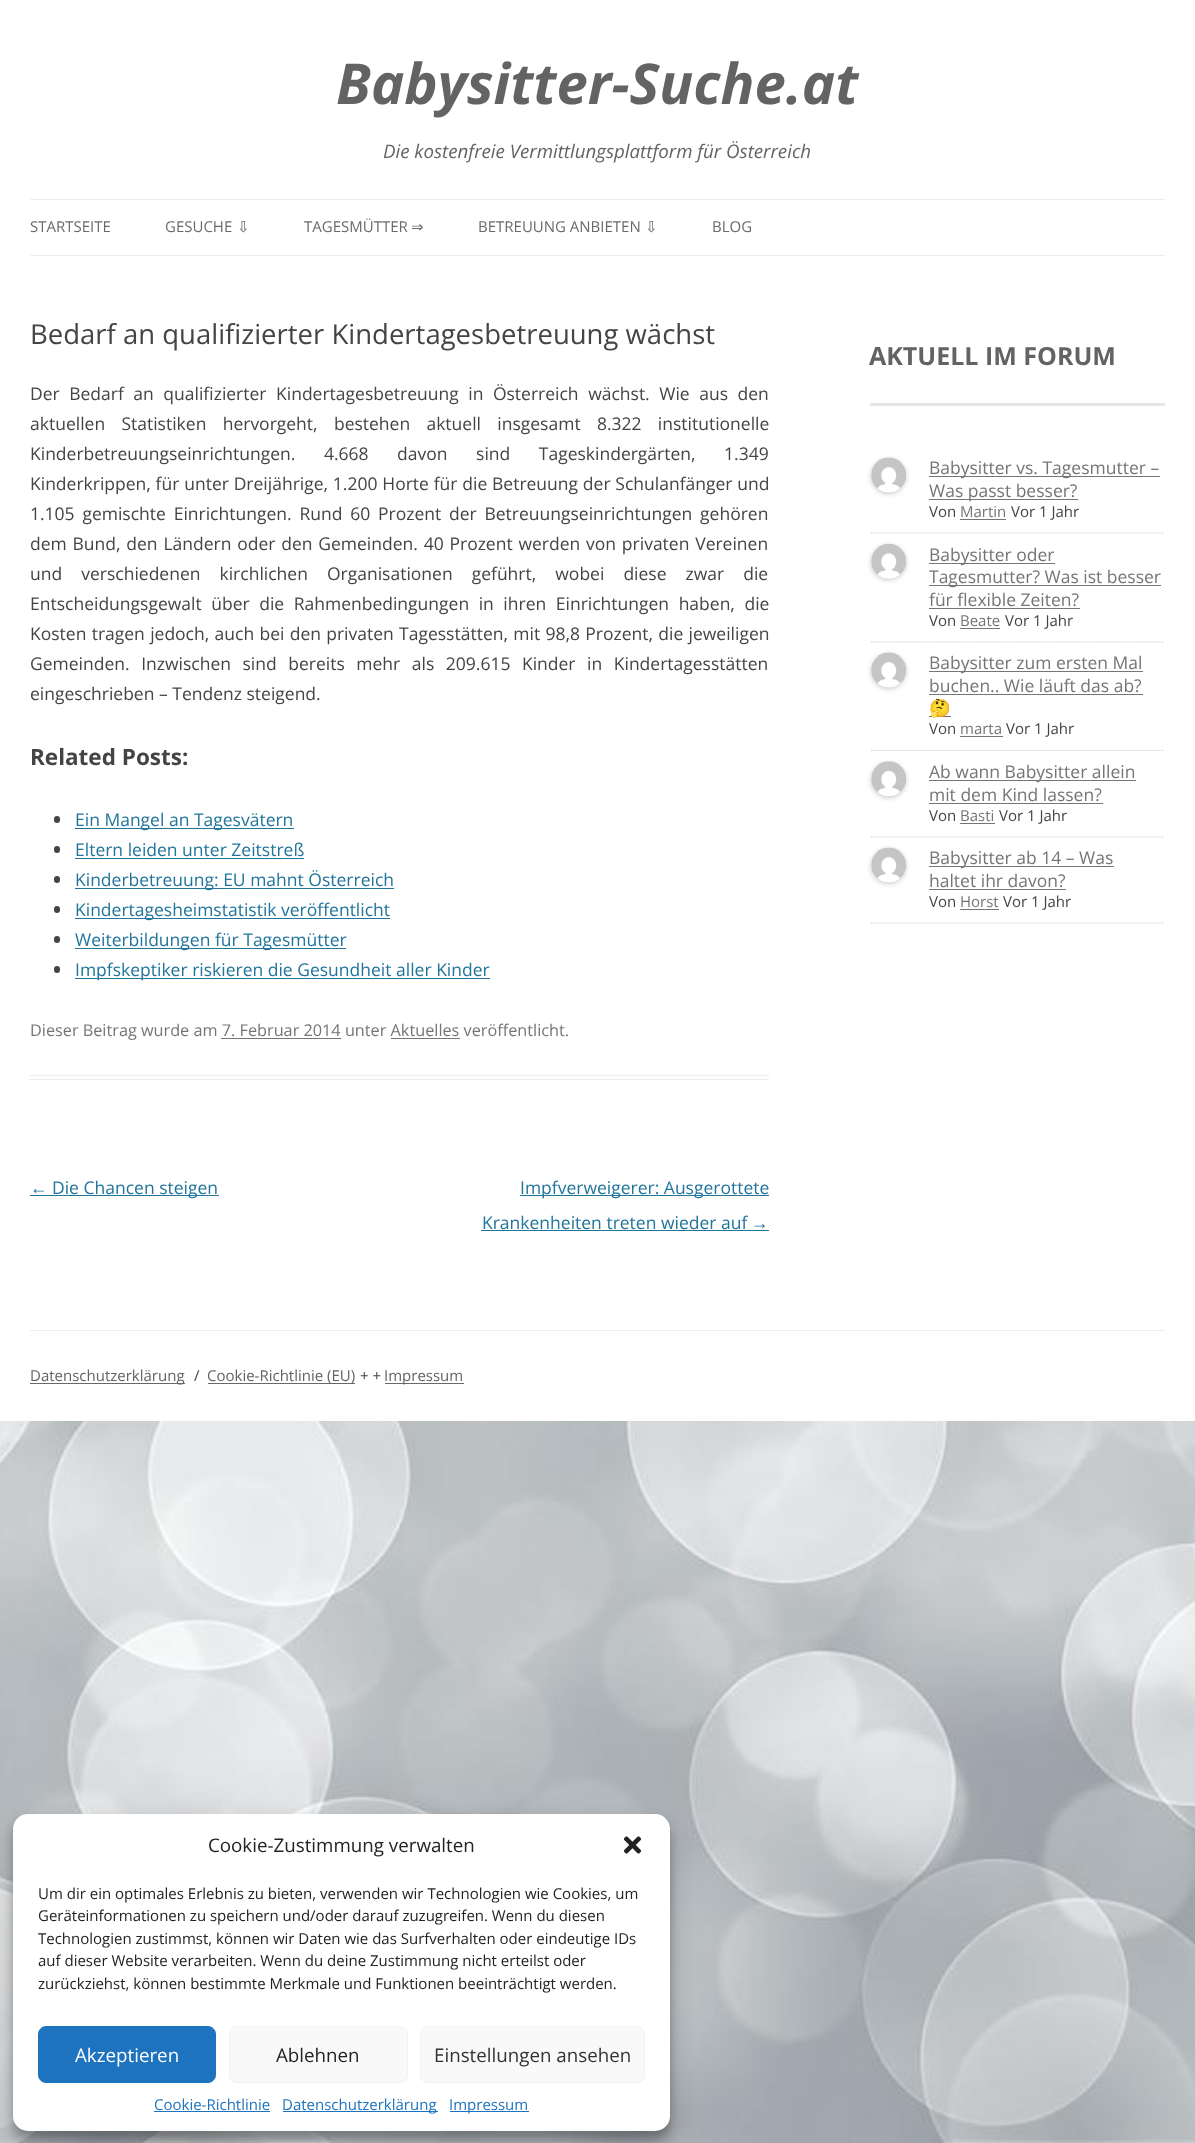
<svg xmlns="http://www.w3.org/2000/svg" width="1195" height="2143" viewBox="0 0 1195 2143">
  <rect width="100%" height="100%" fill="#fff"/>
  <image x="0" y="1421" width="1195" height="722" href="img/1.png"/>
  <path d="M30 199h1135v1H30z" fill="#ededed"/>
  <path d="M30 255h1135v1H30z" fill="#ededed"/>
  <path d="M30 1075h739v1H30z" fill="#ededed"/>
  <path d="M30 1079h739v1H30z" fill="#ededed"/>
  <rect x="54" y="816" width="6" height="7" rx="3" fill="#444"/>
  <path d="M75 828h219v1H75z" fill="#21759b"/>
  <rect x="54" y="846" width="6" height="7" rx="3" fill="#444"/>
  <path d="M75 858h229v1H75z" fill="#21759b"/>
  <rect x="54" y="876" width="6" height="7" rx="3" fill="#444"/>
  <path d="M75 888h319v1H75z" fill="#21759b"/>
  <rect x="54" y="906" width="6" height="7" rx="3" fill="#444"/>
  <path d="M75 918h315v1H75z" fill="#21759b"/>
  <rect x="54" y="936" width="6" height="7" rx="3" fill="#444"/>
  <path d="M75 948h271v1H75z" fill="#21759b"/>
  <rect x="54" y="966" width="6" height="7" rx="3" fill="#444"/>
  <path d="M75 978h415v1H75z" fill="#21759b"/>
  <path d="M221 1038h120v1H221z" fill="#757575"/>
  <path d="M391 1038h69v1H391z" fill="#757575"/>
  <path d="M30 1195h189v1H30z" fill="#21759b"/>
  <path d="M520 1195h249v1H520z" fill="#21759b"/>
  <path d="M481 1230h288v1H481z" fill="#21759b"/>
  <path d="M870 403h295v3H870z" fill="#e6e6e6"/>
  <path d="M871 533H1164" fill="none" stroke="#ccc" stroke-width="1.2" stroke-dasharray="1.25 1.25"/>
  <rect x="871" y="459" width="35" height="35" rx="17.5" fill="#00000033" filter="blur(2.5px)"/>
  <image x="871" y="457" width="35" height="36" href="img/2.png"/>
  <path d="M929 476h231v1H929z" fill="#757575"/>
  <path d="M929 499h149v1H929z" fill="#757575"/>
  <path d="M960 519h46v1H960z" fill="#757575"/>
  <path d="M871 642H1164" fill="none" stroke="#ccc" stroke-width="1.2" stroke-dasharray="1.25 1.25"/>
  <rect x="871" y="545" width="35" height="35" rx="17.5" fill="#00000033" filter="blur(2.5px)"/>
  <image x="871" y="544" width="35" height="35" href="img/3.png"/>
  <path d="M929 563h126v1H929z" fill="#757575"/>
  <path d="M929 585h232v1H929z" fill="#757575"/>
  <path d="M929 608h151v1H929z" fill="#757575"/>
  <path d="M960 628h40v1H960z" fill="#757575"/>
  <path d="M871 750.5H1164" fill="none" stroke="#ccc" stroke-width="1.2" stroke-dasharray="1.25 1.25"/>
  <rect x="871" y="654" width="35" height="35" rx="17.5" fill="#00000033" filter="blur(2.5px)"/>
  <image x="871" y="652" width="35" height="36" href="img/2.png"/>
  <path d="M929 671h214v1H929z" fill="#757575"/>
  <path d="M929 694h214v1H929z" fill="#757575"/>
  <path d="M929 716h22v1H929z" fill="#757575"/>
  <path d="M960 736h43v1H960z" fill="#757575"/>
  <path d="M871 837H1164" fill="none" stroke="#ccc" stroke-width="1.2" stroke-dasharray="1.25 1.25"/>
  <rect x="871" y="763" width="35" height="35" rx="17.5" fill="#00000033" filter="blur(2.5px)"/>
  <image x="871" y="761" width="35" height="35" href="img/4.png"/>
  <path d="M929 780h207v1H929z" fill="#757575"/>
  <path d="M929 803h174v1H929z" fill="#757575"/>
  <path d="M960 823h35v1H960z" fill="#757575"/>
  <path d="M871 923H1164" fill="none" stroke="#ccc" stroke-width="1.2" stroke-dasharray="1.25 1.25"/>
  <rect x="871" y="849" width="35" height="35" rx="17.5" fill="#00000033" filter="blur(2.5px)"/>
  <image x="871" y="847" width="35" height="36" href="img/2.png"/>
  <path d="M929 866h185v1H929z" fill="#757575"/>
  <path d="M929 889h137v1H929z" fill="#757575"/>
  <path d="M960 909h39v1H960z" fill="#757575"/>
  <path d="M30 1330h1135v1H30z" fill="#ededed"/>
  <path d="M30 1383h155v1H30z" fill="#686868"/>
  <path d="M208 1383h147v1H208z" fill="#686868"/>
  <path d="M385 1383h79v1H385z" fill="#686868"/>
  <rect x="13" y="1821" width="657" height="318" rx="15" fill="#0000003b" filter="blur(4px)"/>
  <rect x="13" y="1826" width="657" height="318" rx="15" fill="#00000030" filter="blur(12.5px)"/>
  <rect x="13" y="1814" width="657" height="317" rx="15" fill="#fff"/>
  <image x="623" y="1836" width="19" height="18" href="img/5.png"/>
  <rect x="38.5" y="2026.5" width="177" height="56" rx="7.5" fill="#1e73be" stroke="#1e73be"/>
  <rect x="229.5" y="2026.5" width="178" height="56" rx="7.5" fill="#f9f9f9" stroke="#f2f2f2"/>
  <rect x="420.5" y="2026.5" width="224" height="56" rx="7.5" fill="#f9f9f9" stroke="#f2f2f2"/>
  <path d="M154 2111h116v1H154z" fill="#1e73be"/>
  <path d="M283 2111h155v1H283z" fill="#1e73be"/>
  <path d="M450 2111h79v1H450z" fill="#1e73be"/>
  <text x="336" y="104" font-family="Open Sans" font-size="56.25" font-weight="bold" font-style="italic" fill="#636363">Babysitter-Suche.at</text>
  <text x="383" y="158" font-family="Open Sans" font-size="18.7" font-style="italic" fill="#636363">Die kostenfreie Vermittlungsplattform für Österreich</text>
  <g font-family="Open Sans" font-size="15" fill="#6a6a6a">
    <text x="30" y="232">STARTSEITE</text>
    <text x="165" y="232">GESUCHE</text>
  </g>
  <text x="237" y="232" font-family="DejaVu Sans" font-size="15" fill="#6a6a6a">⇩</text>
  <text x="304" y="232" font-family="Open Sans" font-size="15" fill="#6a6a6a">TAGESMÜTTER</text>
  <text x="411" y="232" font-family="DejaVu Sans" font-size="15" fill="#6a6a6a">⇒</text>
  <text x="478" y="232" font-family="Open Sans" font-size="15" fill="#6a6a6a">BETREUUNG ANBIETEN</text>
  <text x="645" y="232" font-family="DejaVu Sans" font-size="15" fill="#6a6a6a">⇩</text>
  <text x="712" y="232" font-family="Open Sans" font-size="15" fill="#6a6a6a">BLOG</text>
  <text x="30" y="344" font-family="Open Sans" font-size="27.5" fill="#444">Bedarf an qualifizierter Kindertagesbetreuung wächst</text>
  <g font-family="Open Sans" font-size="17.5" fill="#444">
    <text x="30" y="400" word-spacing="5">Der Bedarf an qualifizierter Kindertagesbetreuung in Österreich wächst. Wie aus den</text>
    <text x="30" y="430" word-spacing="11.75">aktuellen Statistiken hervorgeht, bestehen aktuell insgesamt 8.322 institutionelle</text>
    <text x="30" y="460" word-spacing="24">Kinderbetreuungseinrichtungen. 4.668 davon sind Tageskindergärten, 1.349</text>
    <text x="30" y="490" word-spacing="0.25">Kinderkrippen, für unter Dreijährige, 1.200 Horte für die Betreuung der Schulanfänger und</text>
    <text x="30" y="520" word-spacing="3.25">1.105 gemischte Einrichtungen. Rund 60 Prozent der Betreuungseinrichtungen gehören</text>
    <text x="30" y="550" word-spacing="1.25">dem Bund, den Ländern oder den Gemeinden. 40 Prozent werden von privaten Vereinen</text>
    <text x="30" y="580" word-spacing="14.5">und verschiedenen kirchlichen Organisationen geführt, wobei diese zwar die</text>
    <text x="30" y="610" word-spacing="5">Entscheidungsgewalt über die Rahmenbedingungen in ihren Einrichtungen haben, die</text>
    <text x="30" y="640" word-spacing="0.75">Kosten tragen jedoch, auch bei den privaten Tagesstätten, mit 98,8 Prozent, die jeweiligen</text>
    <text x="30" y="670" word-spacing="7">Gemeinden. Inzwischen sind bereits mehr als 209.615 Kinder in Kindertagesstätten</text>
    <text x="30" y="700">eingeschrieben – Tendenz steigend.</text>
  </g>
  <text x="30" y="765" font-family="Open Sans" font-size="22.5" font-weight="bold" fill="#444">Related Posts:</text>
  <g font-family="Open Sans" font-size="17.5" fill="#21759b">
    <text x="75" y="826">Ein Mangel an Tagesvätern</text>
    <text x="75" y="856">Eltern leiden unter Zeitstreß</text>
    <text x="75" y="886">Kinderbetreuung: EU mahnt Österreich</text>
    <text x="75" y="916">Kindertagesheimstatistik veröffentlicht</text>
    <text x="75" y="946">Weiterbildungen für Tagesmütter</text>
    <text x="75" y="976">Impfskeptiker riskieren die Gesundheit aller Kinder</text>
  </g>
  <text x="30" y="1036" font-family="Open Sans" font-size="16.25" fill="#757575">Dieser Beitrag wurde am 7. Februar 2014 unter Aktuelles veröffentlicht.</text>
  <text x="30" y="1194" font-family="Liberation Sans" font-size="17.5" fill="#21759b">←</text>
  <g font-family="Open Sans" font-size="17.5" fill="#21759b">
    <text x="52" y="1194">Die Chancen steigen</text>
    <text x="520" y="1194">Impfverweigerer: Ausgerottete</text>
    <text x="482" y="1229">Krankenheiten treten wieder auf</text>
  </g>
  <text x="751" y="1229" font-family="Liberation Sans" font-size="17.5" fill="#21759b">→</text>
  <text x="869" y="365" font-family="Open Sans" font-size="25" font-weight="bold" fill="#636363">AKTUELL IM FORUM</text>
  <g font-family="Open Sans" font-size="17.5" fill="#757575">
    <text x="929" y="474">Babysitter vs. Tagesmutter –</text>
    <text x="929" y="497">Was passt besser?</text>
  </g>
  <text x="929" y="517" font-family="Open Sans" font-size="15" fill="#444">Von</text>
  <text x="960" y="517" font-family="Open Sans" font-size="15" fill="#757575">Martin</text>
  <text x="1011" y="517" font-family="Open Sans" font-size="15" fill="#444">Vor 1 Jahr</text>
  <g font-family="Open Sans" font-size="17.5" fill="#757575">
    <text x="929" y="561">Babysitter oder</text>
    <text x="929" y="583">Tagesmutter? Was ist besser</text>
    <text x="929" y="606">für flexible Zeiten?</text>
  </g>
  <text x="929" y="626" font-family="Open Sans" font-size="15" fill="#444">Von</text>
  <text x="960" y="626" font-family="Open Sans" font-size="15" fill="#757575">Beate</text>
  <text x="1005" y="626" font-family="Open Sans" font-size="15" fill="#444">Vor 1 Jahr</text>
  <g font-family="Open Sans" font-size="17.5" fill="#757575">
    <text x="929" y="669">Babysitter zum ersten Mal</text>
    <text x="929" y="692">buchen.. Wie läuft das ab?</text>
  </g>
  <text x="929" y="714" font-family="Noto Color Emoji" font-size="17.5" fill="#757575">🤔</text>
  <text x="929" y="734" font-family="Open Sans" font-size="15" fill="#444">Von</text>
  <text x="960" y="734" font-family="Open Sans" font-size="15" fill="#757575">marta</text>
  <text x="1006" y="734" font-family="Open Sans" font-size="15" fill="#444">Vor 1 Jahr</text>
  <g font-family="Open Sans" font-size="17.5" fill="#757575">
    <text x="929" y="778">Ab wann Babysitter allein</text>
    <text x="929" y="801">mit dem Kind lassen?</text>
  </g>
  <text x="929" y="821" font-family="Open Sans" font-size="15" fill="#444">Von</text>
  <text x="960" y="821" font-family="Open Sans" font-size="15" fill="#757575">Basti</text>
  <text x="999" y="821" font-family="Open Sans" font-size="15" fill="#444">Vor 1 Jahr</text>
  <g font-family="Open Sans" font-size="17.5" fill="#757575">
    <text x="929" y="864">Babysitter ab 14 – Was</text>
    <text x="929" y="887">haltet ihr davon?</text>
  </g>
  <text x="929" y="907" font-family="Open Sans" font-size="15" fill="#444">Von</text>
  <text x="960" y="907" font-family="Open Sans" font-size="15" fill="#757575">Horst</text>
  <text x="1003" y="907" font-family="Open Sans" font-size="15" fill="#444">Vor 1 Jahr</text>
  <text x="30" y="1381" font-family="Open Sans" font-size="15" fill="#636363">Datenschutzerklärung</text>
  <text x="194" y="1381" font-family="Open Sans" font-size="15" fill="#444">/</text>
  <text x="207" y="1381" font-family="Open Sans" font-size="15" fill="#636363">Cookie-Richtlinie (EU)</text>
  <text x="360" y="1381" font-family="Open Sans" font-size="15" fill="#444">+ +</text>
  <text x="384" y="1381" font-family="Open Sans" font-size="15" fill="#636363">Impressum</text>
  <text x="208" y="1852" font-family="Open Sans" font-size="18.75" fill="#222">Cookie-Zustimmung verwalten</text>
  <g font-family="Open Sans" font-size="15" fill="#222">
    <text x="38" y="1899">Um dir ein optimales Erlebnis zu bieten, verwenden wir Technologien wie Cookies, um</text>
    <text x="38" y="1921">Geräteinformationen zu speichern und/oder darauf zuzugreifen. Wenn du diesen</text>
    <text x="38" y="1944">Technologien zustimmst, können wir Daten wie das Surfverhalten oder eindeutige IDs</text>
    <text x="38" y="1966">auf dieser Website verarbeiten. Wenn du deine Zustimmung nicht erteilst oder</text>
    <text x="38" y="1989">zurückziehst, können bestimmte Merkmale und Funktionen beeinträchtigt werden.</text>
  </g>
  <text x="75" y="2062" font-family="Open Sans" font-size="18.75" fill="#fff">Akzeptieren</text>
  <text x="276" y="2062" font-family="Open Sans" font-size="18.75" fill="#222">Ablehnen</text>
  <text x="434" y="2062" font-family="Open Sans" font-size="18.75" fill="#333">Einstellungen ansehen</text>
  <g font-family="Open Sans" font-size="15" fill="#1e73be">
    <text x="154" y="2110">Cookie-Richtlinie</text>
    <text x="282" y="2110">Datenschutzerklärung</text>
    <text x="449" y="2110">Impressum</text>
  </g>
</svg>
